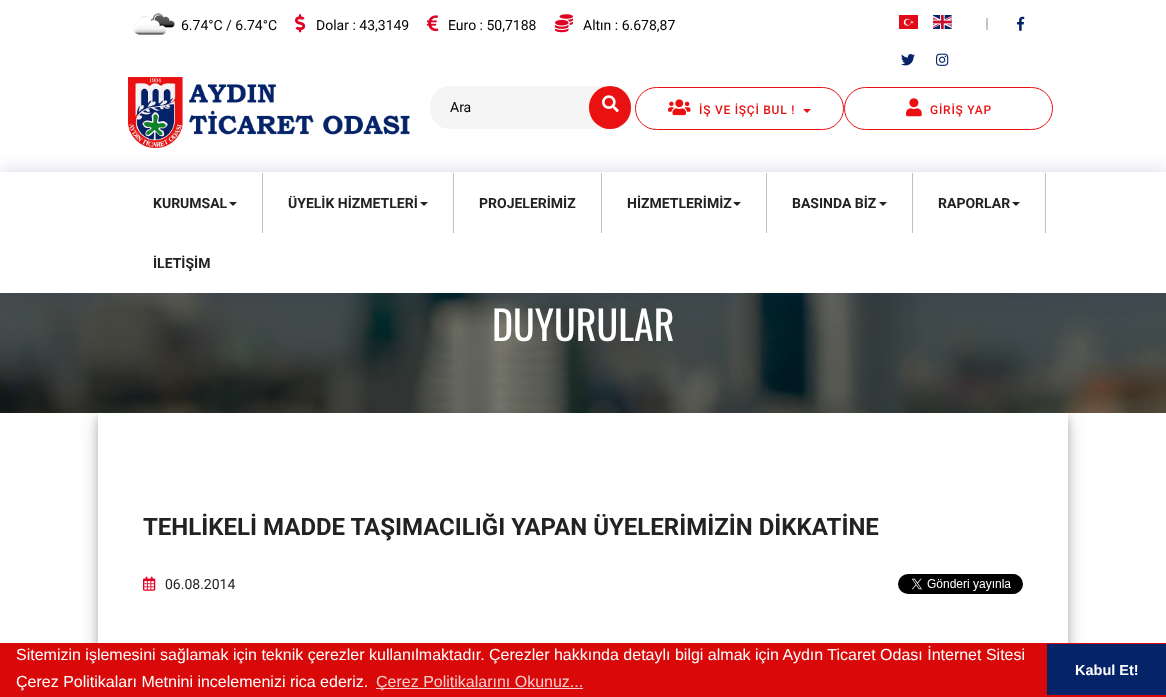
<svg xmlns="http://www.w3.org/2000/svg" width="1166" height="697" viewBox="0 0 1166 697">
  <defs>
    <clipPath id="clip1"><path d="M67 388H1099V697H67ZM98 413H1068V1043H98Z" clip-rule="evenodd"/></clipPath>
    <clipPath id="clip2"><path d="M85 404H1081V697H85ZM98 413H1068V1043H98Z" clip-rule="evenodd"/></clipPath>
  </defs>
  <rect width="100%" height="100%" fill="#fff"/>
  <image x="133" y="13" width="42" height="22" href="img/1.png"/>
  <image x="295" y="14" width="11" height="19" href="img/2.png"/>
  <image x="427" y="15" width="12" height="17" href="img/3.png"/>
  <image x="555" y="14" width="18" height="19" href="img/4.png"/>
  <image x="899" y="15" width="19" height="14" href="img/5.png"/>
  <image x="933" y="15" width="19" height="14" href="img/6.png"/>
  <path d="M986 18h2v12H986z" fill="#c5c5c5"/>
  <image x="1017" y="16" width="8" height="15" href="img/7.png"/>
  <image x="901" y="54" width="14" height="12" href="img/8.png"/>
  <image x="936" y="53" width="13" height="13" href="img/9.png"/>
  <image x="128" y="77" width="282" height="71" href="img/10.png"/>
  <rect x="430" y="86" width="201" height="43" rx="20" fill="#f5f5f5"/>
  <rect x="589" y="86" width="42" height="43" rx="21" fill="#e91112"/>
  <image x="602" y="95" width="17" height="17" href="img/11.png"/>
  <rect x="635.5" y="87.5" width="208" height="42" rx="21" fill="none" stroke="#e91112"/>
  <image x="668" y="99" width="23" height="17" href="img/12.png"/>
  <path d="M803 109H811L807 113Z" fill="#e91112"/>
  <rect x="844.5" y="87.5" width="208" height="42" rx="21" fill="none" stroke="#e91112"/>
  <image x="906" y="98" width="16" height="19" href="img/13.png"/>
  <g clip-path="url(#clip1)">
    <path d="M98 419h970v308H98z" fill="#00000030" filter="blur(10px)"/>
  </g>
  <g clip-path="url(#clip2)">
    <path d="M98 417h970v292H98z" fill="#00000033" filter="blur(4px)"/>
  </g>
  <image x="0" y="293" width="1166" height="120" href="img/14.png"/>
  <path d="M0 172h1166v121H0z" fill="#152f5f33" filter="blur(10px)"/>
  <path d="M0 172h1166v121H0z" fill="#fff"/>
  <path d="M262 173h1v60H262z" fill="#c1c1c1"/>
  <path d="M229 202H237L233 206Z" fill="#222"/>
  <path d="M453 173h1v60H453z" fill="#c1c1c1"/>
  <path d="M420 202H428L424 206Z" fill="#222"/>
  <path d="M601 173h1v60H601z" fill="#c1c1c1"/>
  <path d="M766 173h1v60H766z" fill="#c1c1c1"/>
  <path d="M733 202H741L737 206Z" fill="#222"/>
  <path d="M912 173h1v60H912z" fill="#c1c1c1"/>
  <path d="M879 202H887L883 206Z" fill="#222"/>
  <path d="M1045 173h1v60H1045z" fill="#c1c1c1"/>
  <path d="M1012 202H1020L1016 206Z" fill="#222"/>
  <image x="143" y="576" width="13" height="15" href="img/15.png"/>
  <image x="898" y="574" width="125" height="20" href="img/16.png"/>
  <path d="M0 643h1166v54H0z" fill="#d90909"/>
  <path d="M376 688h207v1H376z" fill="#f7cece"/>
  <path d="M1047 644h119v51H1047z" fill="#052369"/>
  <g font-family="Roboto" font-size="14" fill="#000">
    <text x="181" y="30">6.74°C / 6.74°C</text>
    <text x="316" y="30">Dolar : 43,3149</text>
    <text x="448" y="30">Euro : 50,7188</text>
    <text x="583" y="30">Altın : 6.678,87</text>
    <text x="450" y="112">Ara</text>
  </g>
  <g font-family="Roboto" font-size="12" font-weight="500" letter-spacing="0.75" fill="#e91112">
    <text x="699" y="114">İŞ VE İŞÇİ BUL !</text>
    <text x="930" y="114">GİRİŞ YAP</text>
  </g>
  <g font-family="Roboto" font-size="14" font-weight="bold" fill="#222">
    <text x="153" y="208">KURUMSAL</text>
    <text x="288" y="208">ÜYELİK HİZMETLERİ</text>
    <text x="479" y="208">PROJELERİMİZ</text>
    <text x="627" y="208">HİZMETLERİMİZ</text>
    <text x="792" y="208">BASINDA BİZ</text>
    <text x="938" y="208">RAPORLAR</text>
    <text x="153" y="268">İLETİŞİM</text>
  </g>
  <text x="492" y="341" font-family="Oswald" font-size="40" fill="#fff">DUYURULAR</text>
  <text x="143" y="535" font-family="Roboto" font-size="24" font-weight="bold" fill="#222">TEHLİKELİ MADDE TAŞIMACILIĞI YAPAN ÜYELERİMİZİN DİKKATİNE</text>
  <text x="165" y="589" font-family="Roboto" font-size="14" fill="#222">06.08.2014</text>
  <g font-family="Liberation Sans" font-size="16" fill="#fff">
    <text x="16" y="660">Sitemizin işlemesini sağlamak için teknik çerezler kullanılmaktadır. Çerezler hakkında detaylı bilgi almak için Aydın Ticaret Odası İnternet Sitesi</text>
    <text x="16" y="687">Çerez Politikaları Metnini incelemenizi rica ederiz.</text>
  </g>
  <text x="376" y="687" font-family="Liberation Sans" font-size="16" fill="#f7cece">Çerez Politikalarını Okunuz...</text>
  <text x="1075" y="675" font-family="Liberation Sans" font-size="14.5" font-weight="bold" fill="#fff">Kabul Et!</text>
</svg>
